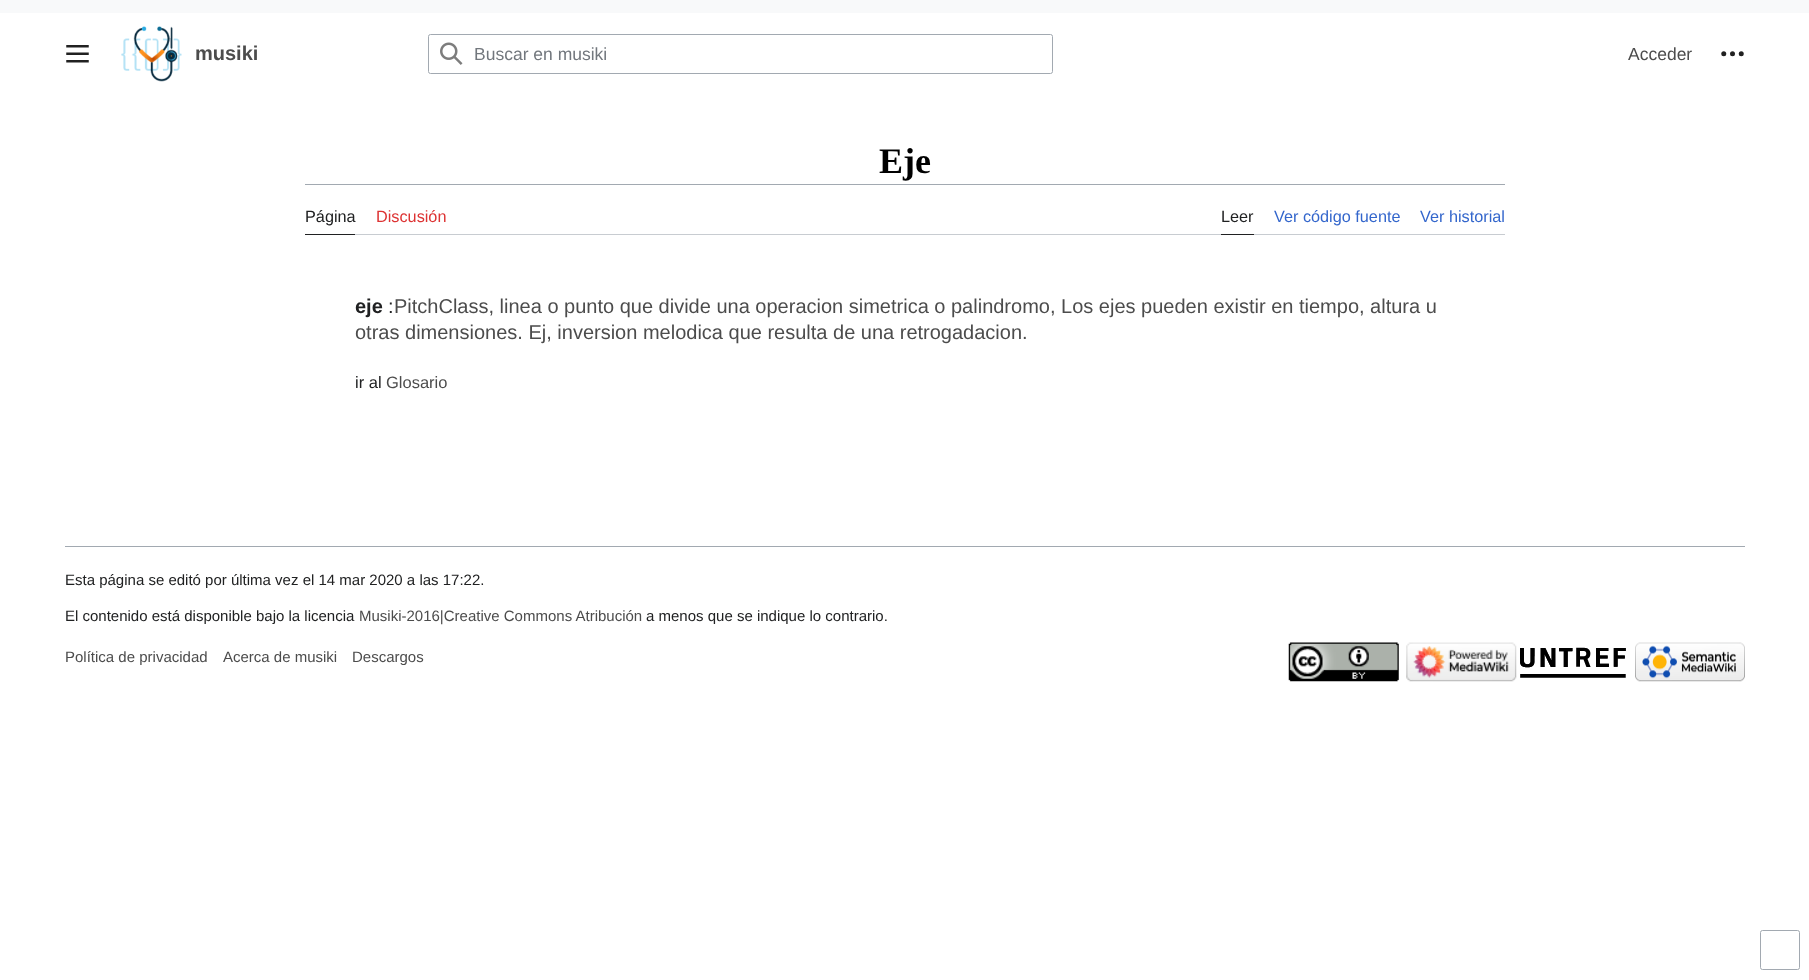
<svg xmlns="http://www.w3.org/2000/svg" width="1809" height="980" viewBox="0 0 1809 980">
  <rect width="100%" height="100%" fill="#f8f9fa"/>
  <path d="M0 13h1809v967H0z" fill="#fff"/>
  <image x="66" y="45" width="23" height="18" href="img/1.png"/>
  <image x="121" y="26" width="61" height="56" href="img/2.png"/>
  <rect x="428.5" y="34.5" width="624" height="39" rx="2" fill="none" stroke="#a2a9b1"/>
  <image x="440" y="42" width="23" height="23" href="img/3.png"/>
  <image x="1721" y="51" width="23" height="6" href="img/4.png"/>
  <path d="M305 184h1200v1H305z" fill="#a2a9b1"/>
  <path d="M355 234h1150v1H355z" fill="#c8ccd1"/>
  <path d="M305 234h50v1H305z" fill="#202122"/>
  <path d="M1221 234h33v1H1221z" fill="#202122"/>
  <path d="M65 546h1680v1H65z" fill="#a2a9b1"/>
  <image x="1288" y="642" width="111" height="40" href="img/5.png"/>
  <image x="1406" y="642" width="111" height="40" href="img/6.png"/>
  <image x="1520" y="647" width="106" height="31" href="img/7.png"/>
  <image x="1635" y="642" width="110" height="40" href="img/8.png"/>
  <rect x="1760.5" y="930.5" width="39" height="39" rx="2" fill="none" stroke="#a2a9b1"/>
  <text x="195" y="60" font-family="Liberation Sans" font-size="20" font-weight="bold" fill="#4c4c4c">musiki</text>
  <text x="474" y="60" font-family="Liberation Sans" font-size="17.5" fill="#72777d">Buscar en musiki</text>
  <text x="1628" y="60" font-family="Liberation Sans" font-size="17.5" fill="#4c4c4c">Acceder</text>
  <text x="879" y="173" font-family="Liberation Serif" font-size="36" font-weight="bold" fill="#000">Eje</text>
  <text x="305" y="222" font-family="Liberation Sans" font-size="16.25" fill="#202122">Página</text>
  <text x="376" y="222" font-family="Liberation Sans" font-size="16.25" fill="#d33">Discusión</text>
  <text x="1221" y="222" font-family="Liberation Sans" font-size="16.25" fill="#202122">Leer</text>
  <g font-family="Liberation Sans" font-size="16.25" fill="#36c">
    <text x="1274" y="222">Ver código fuente</text>
    <text x="1420" y="222">Ver historial</text>
  </g>
  <text x="355" y="313" font-family="Liberation Sans" font-size="20" font-weight="bold" fill="#202122">eje</text>
  <text x="388" y="313" font-family="Liberation Sans" font-size="20" fill="#202122">:</text>
  <g font-family="Liberation Sans" font-size="20" fill="#4c4c4c">
    <text x="394" y="313">PitchClass, linea o punto que divide una operacion simetrica o palindromo, Los ejes pueden existir en tiempo, altura u</text>
    <text x="355" y="339">otras dimensiones. Ej, inversion melodica que resulta de una retrogadacion.</text>
  </g>
  <text x="355" y="388" font-family="Liberation Sans" font-size="16.5" fill="#202122">ir al</text>
  <text x="386" y="388" font-family="Liberation Sans" font-size="16.5" fill="#4c4c4c">Glosario</text>
  <g font-family="Liberation Sans" font-size="15" fill="#202122">
    <text x="65" y="585">Esta página se editó por última vez el 14 mar 2020 a las 17:22.</text>
    <text x="65" y="621">El contenido está disponible bajo la licencia</text>
  </g>
  <text x="359" y="621" font-family="Liberation Sans" font-size="15" fill="#4c4c4c">Musiki-2016|Creative Commons Atribución</text>
  <text x="646" y="621" font-family="Liberation Sans" font-size="15" fill="#202122">a menos que se indique lo contrario.</text>
  <g font-family="Liberation Sans" font-size="15" fill="#4c4c4c">
    <text x="65" y="662">Política de privacidad</text>
    <text x="223" y="662">Acerca de musiki</text>
    <text x="352" y="662">Descargos</text>
  </g>
</svg>
